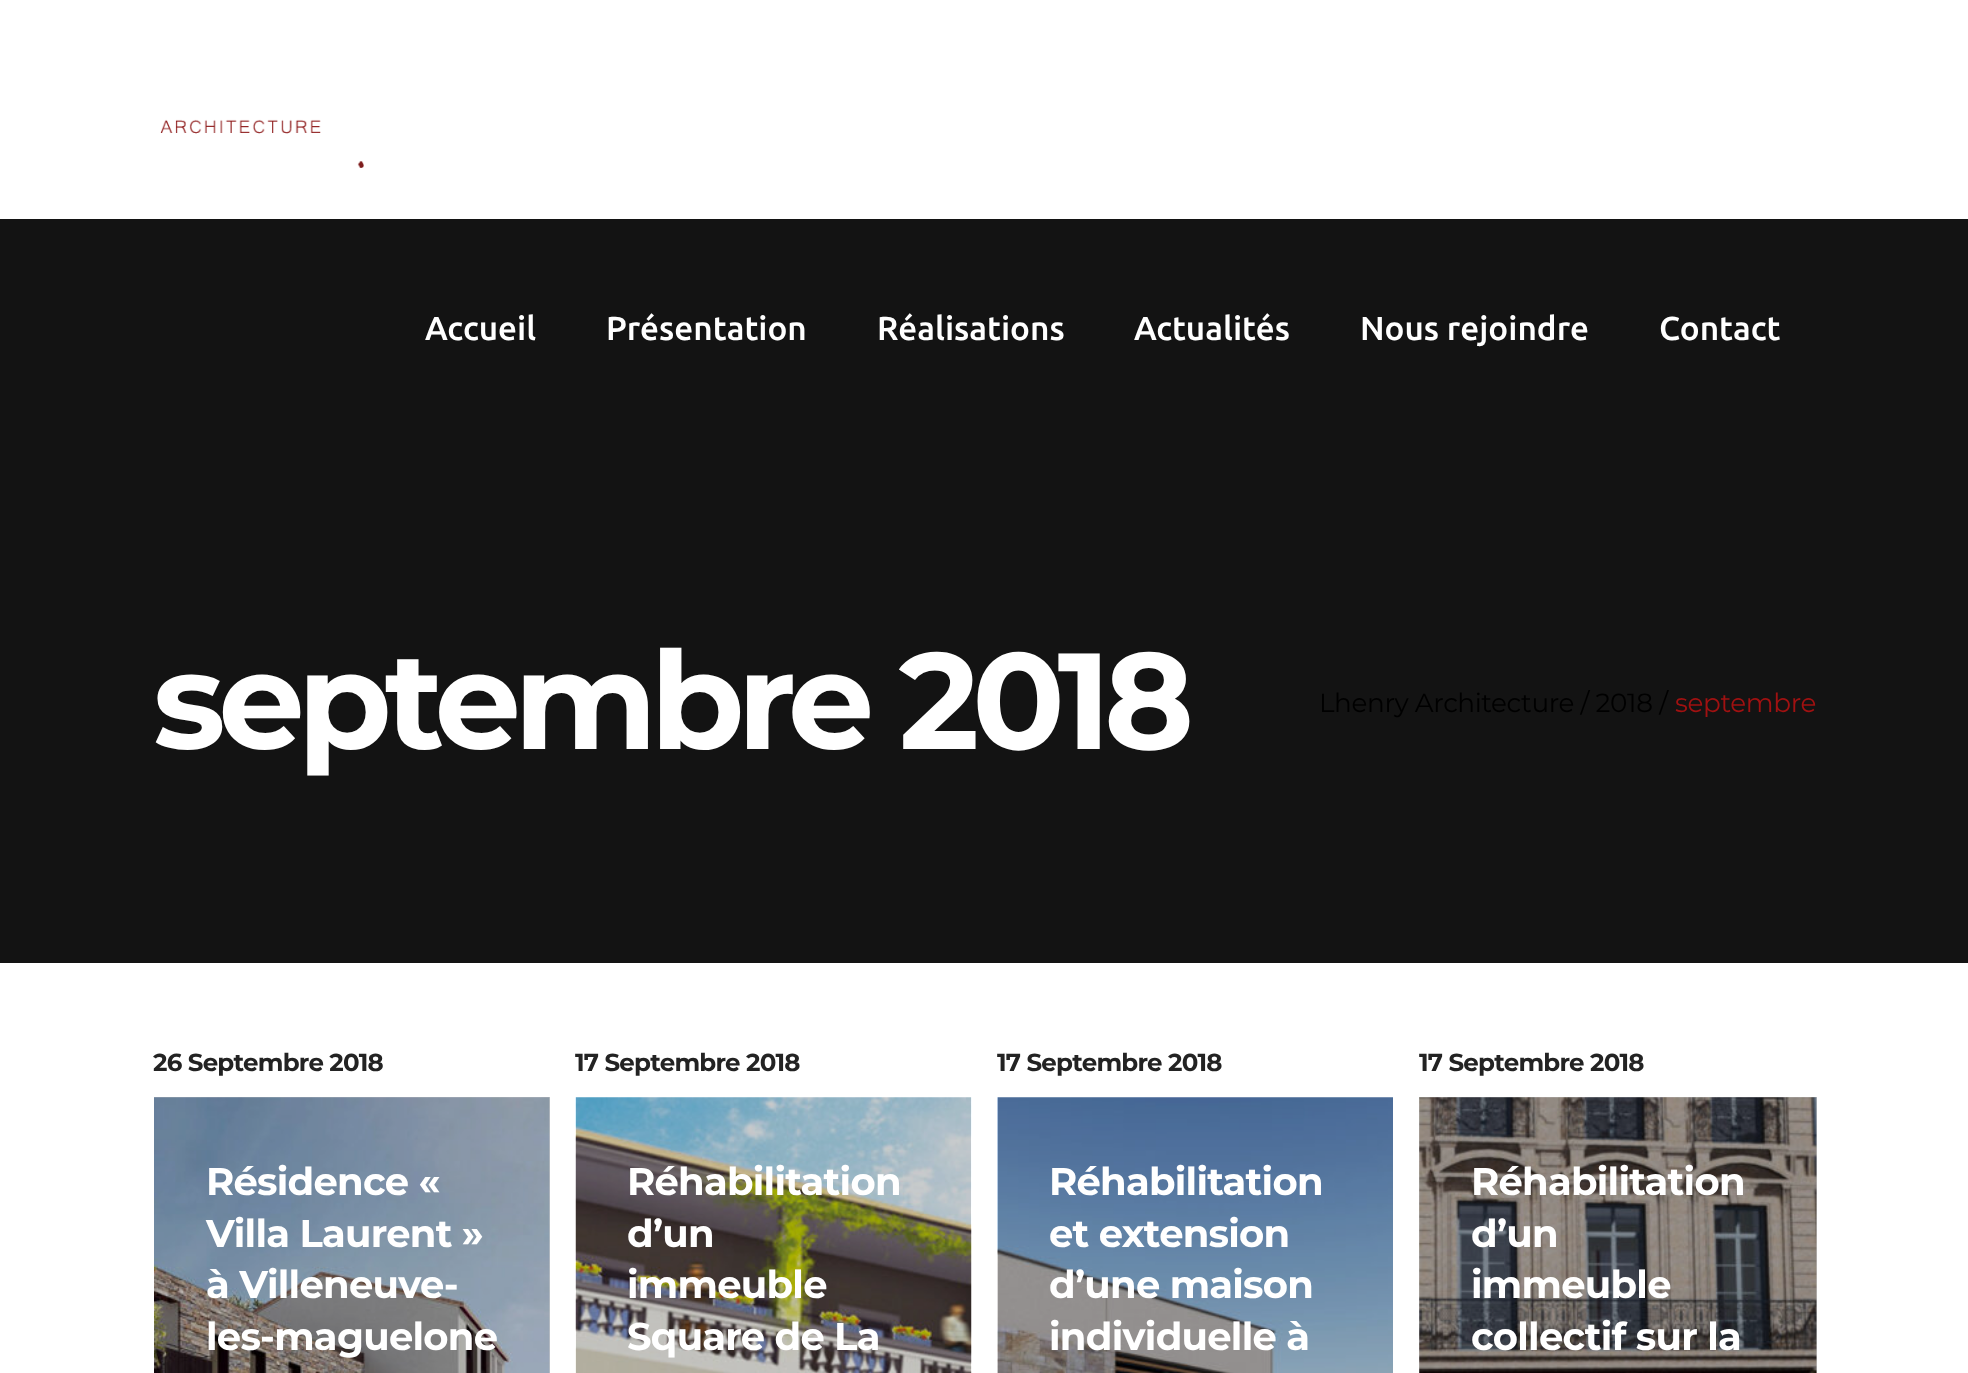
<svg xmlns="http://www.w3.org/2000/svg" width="1968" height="1373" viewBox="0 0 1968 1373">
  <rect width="100%" height="100%" fill="#fff"/>
  <path d="M1419 1097h398v276H1419z" fill="#ccc"/>
  <path d="M154 1097h396v276H154z" fill="#ccc"/>
  <image x="160" y="119" width="204" height="49" href="img/1.png"/>
  <path d="M0 219h1968v744H0z" fill="#131313"/>
  <image x="154" y="1097" width="396" height="276" href="img/2.png"/>
  <image x="575" y="1097" width="397" height="276" href="img/3.png"/>
  <image x="997" y="1097" width="396" height="276" href="img/4.png"/>
  <image x="1419" y="1097" width="398" height="276" href="img/5.png"/>
  <g font-family="Ubuntu" font-size="33.25" font-weight="500" fill="#fff">
    <text x="425" y="340">Accueil</text>
    <text x="606" y="340">Présentation</text>
    <text x="877" y="340">Réalisations</text>
    <text x="1134" y="340">Actualités</text>
    <text x="1360" y="340">Nous rejoindre</text>
    <text x="1659" y="340">Contact</text>
  </g>
  <text x="153" y="749" font-family="Montserrat" font-size="136.5" font-weight="bold" letter-spacing="-7" fill="#fff">septembre 2018</text>
  <text x="1319" y="712" font-family="Montserrat" font-size="26.25" letter-spacing="-0.35" fill="#000">Lhenry Architecture / 2018 /</text>
  <text x="1675" y="712" font-family="Montserrat" font-size="26.25" letter-spacing="-0.35" fill="#a01111">septembre</text>
  <text x="153" y="1071" font-family="Montserrat" font-size="24.5" font-weight="bold" letter-spacing="-0.75" fill="#232323">26 Septembre 2018</text>
  <g font-family="Montserrat" font-size="38.5" font-weight="bold" letter-spacing="-0.75" fill="#fff">
    <text x="206" y="1195">Résidence «</text>
    <text x="206" y="1247">Villa Laurent »</text>
    <text x="206" y="1298">à Villeneuve-</text>
    <text x="206" y="1350">les-maguelone</text>
  </g>
  <text x="575" y="1071" font-family="Montserrat" font-size="24.5" font-weight="bold" letter-spacing="-0.75" fill="#232323">17 Septembre 2018</text>
  <g font-family="Montserrat" font-size="38.5" font-weight="bold" letter-spacing="-0.75" fill="#fff">
    <text x="627" y="1195">Réhabilitation</text>
    <text x="627" y="1247">d’un</text>
    <text x="627" y="1298">immeuble</text>
    <text x="627" y="1350">Square de La</text>
  </g>
  <text x="997" y="1071" font-family="Montserrat" font-size="24.5" font-weight="bold" letter-spacing="-0.75" fill="#232323">17 Septembre 2018</text>
  <g font-family="Montserrat" font-size="38.5" font-weight="bold" letter-spacing="-0.75" fill="#fff">
    <text x="1049" y="1195">Réhabilitation</text>
    <text x="1049" y="1247">et extension</text>
    <text x="1049" y="1298">d’une maison</text>
    <text x="1049" y="1350">individuelle à</text>
  </g>
  <text x="1419" y="1071" font-family="Montserrat" font-size="24.5" font-weight="bold" letter-spacing="-0.75" fill="#232323">17 Septembre 2018</text>
  <g font-family="Montserrat" font-size="38.5" font-weight="bold" letter-spacing="-0.75" fill="#fff">
    <text x="1471" y="1195">Réhabilitation</text>
    <text x="1471" y="1247">d’un</text>
    <text x="1471" y="1298">immeuble</text>
    <text x="1471" y="1350">collectif sur la</text>
  </g>
</svg>
